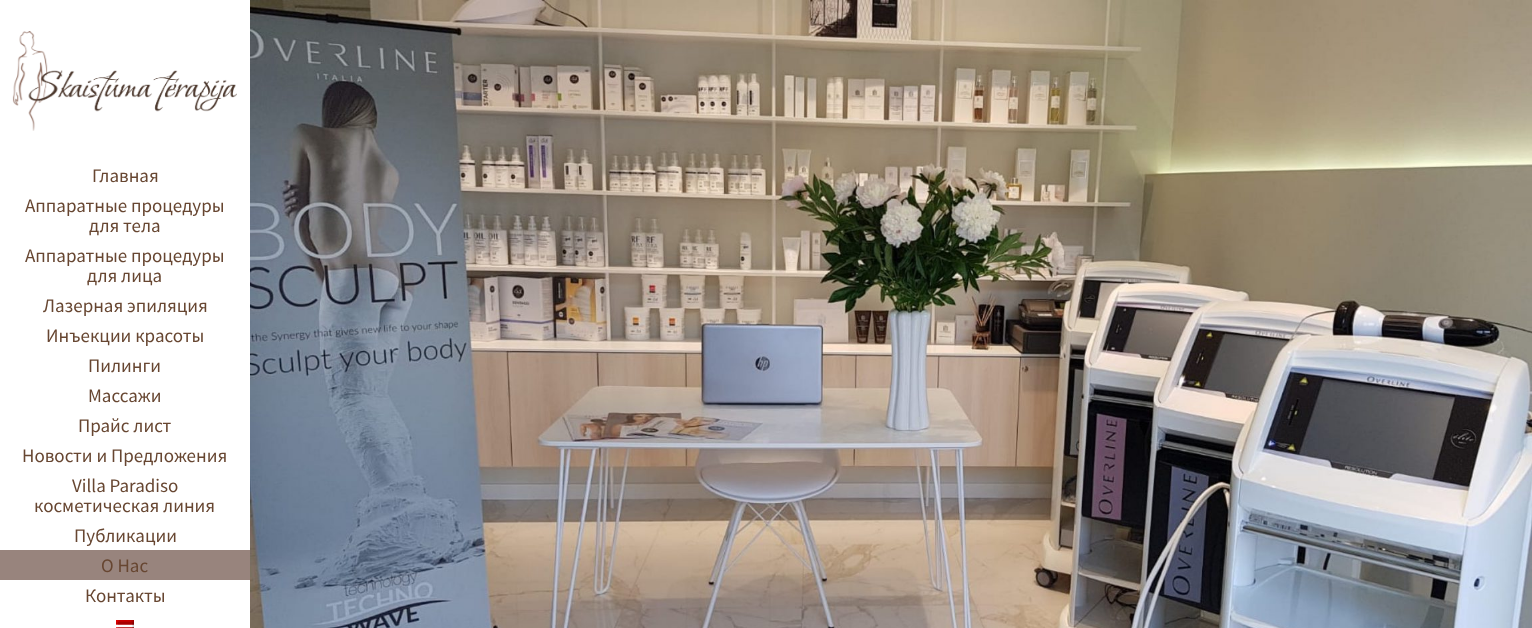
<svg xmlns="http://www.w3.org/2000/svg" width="1532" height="628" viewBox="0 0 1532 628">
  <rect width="100%" height="100%" fill="#fff"/>
  <image x="12" y="31" width="225" height="100" href="img/1.png"/>
  <path d="M0 550h250v30H0z" fill="#98847d"/>
  <image x="116" y="620" width="18" height="8" href="img/2.png"/>
  <image x="250" y="0" width="1282" height="628" href="img/3.png"/>
  <g font-family="Source Sans Pro" font-size="19" fill="#674631">
    <text x="92" y="182">Главная</text>
    <text x="25" y="212">Аппаратные процедуры</text>
    <text x="89" y="232">для тела</text>
    <text x="25" y="262">Аппаратные процедуры</text>
    <text x="87" y="282">для лица</text>
    <text x="43" y="312">Лазерная эпиляция</text>
    <text x="46" y="342">Инъекции красоты</text>
    <text x="88" y="372">Пилинги</text>
    <text x="88" y="402">Массажи</text>
    <text x="78" y="432">Прайс лист</text>
    <text x="22" y="462">Новости и Предложения</text>
    <text x="72" y="492">Villa Paradiso</text>
    <text x="34" y="512">косметическая линия</text>
    <text x="74" y="542">Публикации</text>
    <text x="101" y="572">О Нас</text>
    <text x="85" y="602">Контакты</text>
  </g>
</svg>
